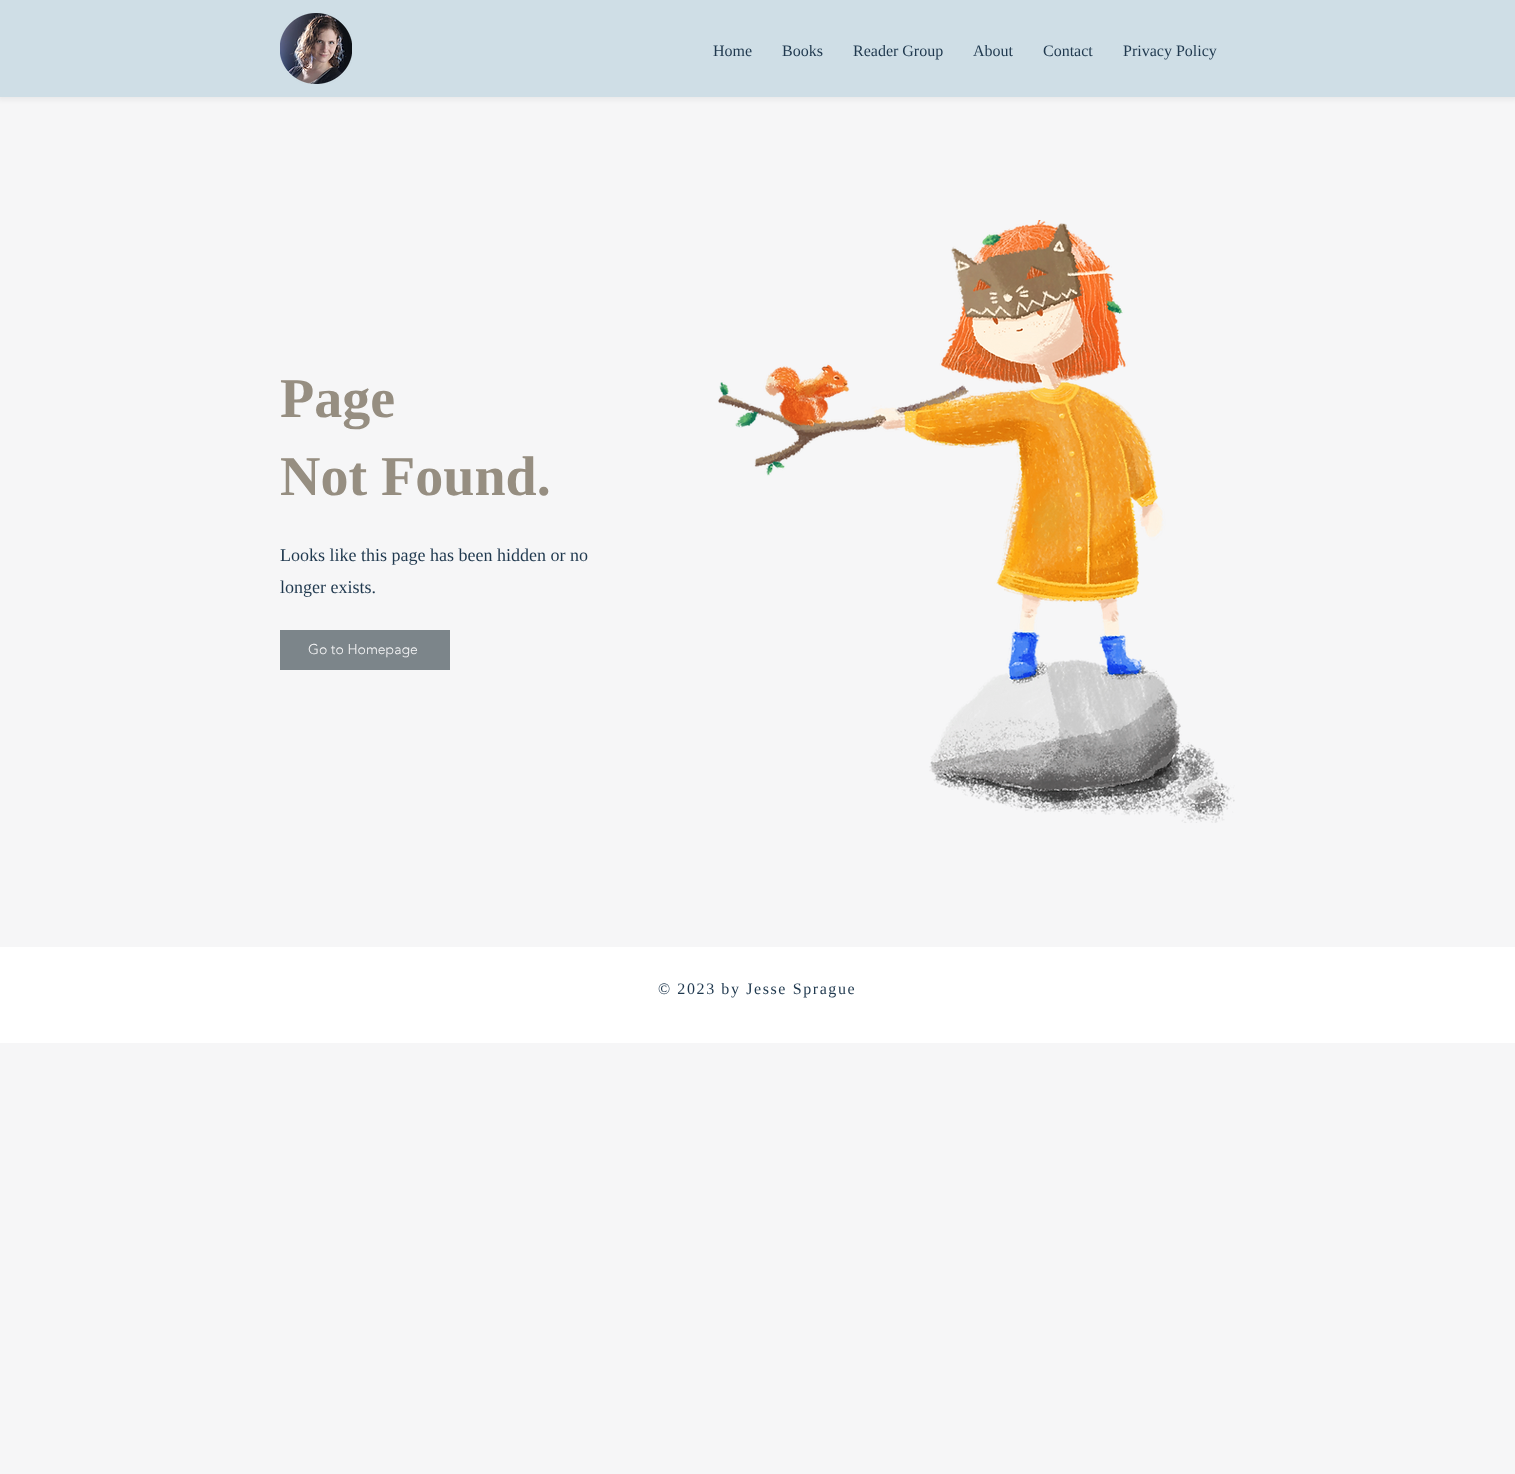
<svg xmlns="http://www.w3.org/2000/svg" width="1515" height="1474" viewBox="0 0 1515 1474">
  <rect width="100%" height="100%" fill="#f6f6f7"/>
  <path d="M-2 -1h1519v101H-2z" fill="#0000000d" filter="blur(2.5px)"/>
  <path d="M0 0h1515v97H0z" fill="#cfdee6"/>
  <image x="280" y="13" width="72" height="71" href="img/1.png"/>
  <image x="718" y="220" width="517" height="603" href="img/2.png"/>
  <path d="M280 630h170v40H280z" fill="#7c858a"/>
  <path d="M0 947h1515v96H0z" fill="#fff"/>
  <g font-family="Liberation Serif" font-size="16" fill="#1f384e">
    <text x="713" y="56">Home</text>
    <text x="782" y="56">Books</text>
    <text x="853" y="56">Reader Group</text>
    <text x="973" y="56">About</text>
    <text x="1043" y="56">Contact</text>
    <text x="1123" y="56">Privacy Policy</text>
  </g>
  <g font-family="Liberation Serif" font-size="56" font-weight="bold" fill="#968e81">
    <text x="280" y="417">Page</text>
    <text x="280" y="495">Not Found.</text>
  </g>
  <g font-family="Liberation Serif" font-size="18" fill="#1f384e">
    <text x="280" y="561">Looks like this page has been hidden or no</text>
    <text x="280" y="593">longer exists.</text>
  </g>
  <text x="308" y="654" font-family="'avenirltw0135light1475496'" font-size="14" font-weight="300" fill="#f6f6f7">Go to Homepage</text>
  <text x="658" y="994" font-family="Liberation Serif" font-size="16" letter-spacing="1.6" fill="#1f384e">© 2023 by Jesse Sprague</text>
</svg>
